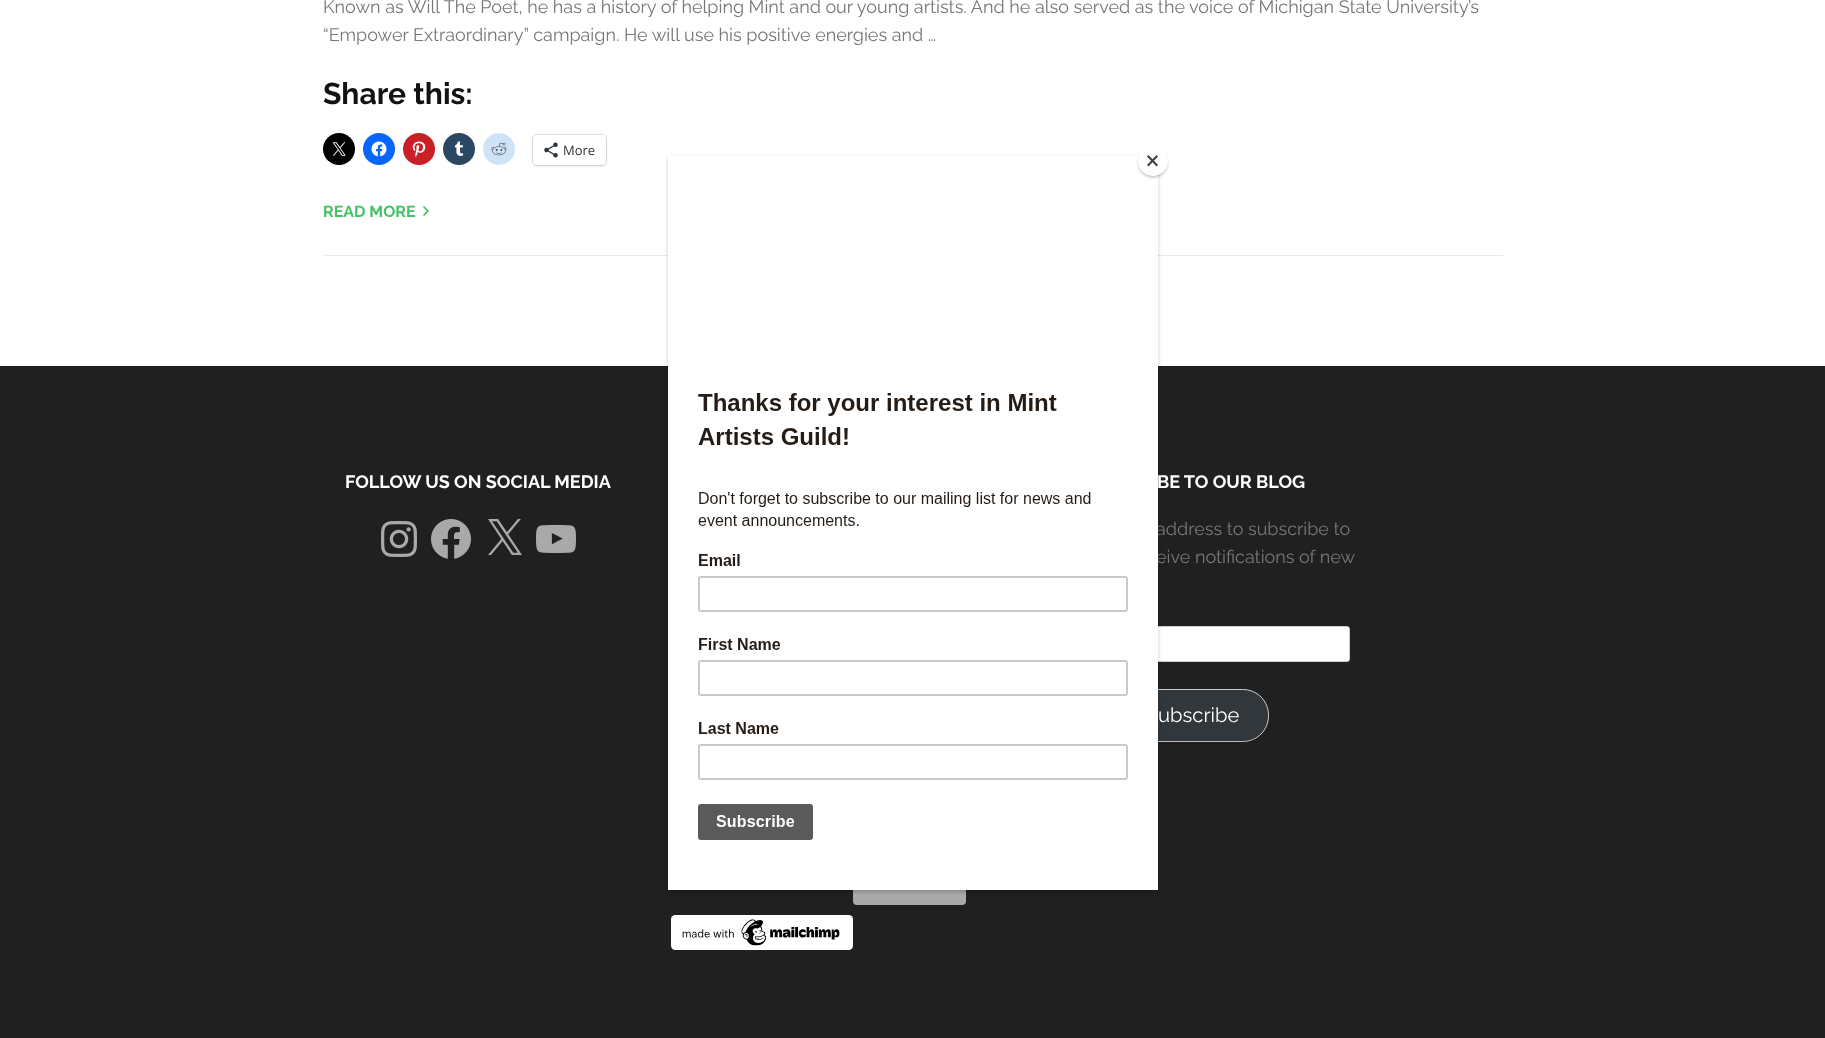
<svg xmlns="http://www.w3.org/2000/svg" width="1825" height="1038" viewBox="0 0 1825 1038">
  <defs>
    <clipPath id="clip1"><path d="M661 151H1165V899H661ZM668 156H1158V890H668Z" clip-rule="evenodd"/></clipPath>
  </defs>
  <rect width="100%" height="100%" fill="#fff"/>
  <path d="M323 255h1180v1H323z" fill="#e8e8e8"/>
  <circle cx="339" cy="149" r="16" fill="#000"/>
  <image x="332" y="142" width="14" height="14" href="img/1.png"/>
  <circle cx="379" cy="149" r="16" fill="#0866ff"/>
  <image x="371" y="141" width="16" height="16" href="img/2.png"/>
  <circle cx="419" cy="149" r="16" fill="#ca1f27"/>
  <image x="412" y="141" width="14" height="16" href="img/3.png"/>
  <circle cx="459" cy="149" r="16" fill="#2c4762"/>
  <image x="454" y="141" width="10" height="15" href="img/4.png"/>
  <circle cx="499" cy="149" r="16" fill="#cee3f8"/>
  <image x="491" y="142" width="16" height="14" href="img/5.png"/>
  <rect x="532.5" y="134.5" width="74" height="31" rx="4.5" fill="none" stroke="#e0e0e0"/>
  <rect x="533" y="136" width="73" height="30" rx="4" fill="#0000001f" filter="blur(1px)"/>
  <rect x="533" y="135" width="73" height="30" rx="4" fill="#fff"/>
  <image x="544" y="142" width="14" height="16" href="img/6.png"/>
  <image x="423" y="206" width="6" height="10" href="img/7.png"/>
  <path d="M0 366h1825v672H0z" fill="#202020"/>
  <image x="381" y="521" width="36" height="36" href="img/8.png"/>
  <image x="431" y="519" width="40" height="40" href="img/9.png"/>
  <image x="488" y="519" width="34" height="36" href="img/10.png"/>
  <image x="536" y="524" width="40" height="30" href="img/11.png"/>
  <rect x="1018.5" y="626.5" width="331" height="35" rx="2.5" fill="#fff" stroke="#ccc"/>
  <rect x="1116" y="689" width="153" height="53" rx="26.5" fill="#32373c"/>
  <path d="M1261 734C1256 739 1249.5 741.5 1242.5 741.5H1142.5C1135.5 741.5 1129 739 1124 734" fill="none" stroke="#bbb"/>
  <path d="M1124 734C1119 729 1116.5 722.5 1116.5 715.5C1116.5 708.5 1119 702 1124 697C1129 692 1135.5 689.5 1142.5 689.5H1242.5C1249.5 689.5 1256 692 1261 697C1266 702 1268.5 708.5 1268.5 715.5C1268.5 722.5 1266 729 1261 734" fill="none" stroke="#ccc"/>
  <rect x="853" y="873" width="113" height="32" rx="4" fill="#aaa"/>
  <image x="671" y="915" width="182" height="35" href="img/12.png"/>
  <rect x="1138" y="148" width="30" height="30" rx="15" fill="#00000033" filter="blur(1px)"/>
  <g clip-path="url(#clip1)">
    <path d="M668 158h490v734H668z" fill="#00000033" filter="blur(2px)"/>
  </g>
  <circle cx="1153" cy="161" r="15" fill="#fff"/>
  <path d="M1156.5 155L1158 156.5L1148.5 166.5L1147 165Z" fill="#414141"/>
  <path d="M1147 156.5L1148.5 155L1158 165L1156.5 166.5Z" fill="#414141"/>
  <g font-family="Raleway" font-size="18" fill="#777">
    <text x="323" y="13">Known as Will The Poet, he has a history of helping Mint and our young artists. And he also served as the voice of Michigan State University’s</text>
    <text x="323" y="41">“Empower Extraordinary” campaign. He will use his positive energies and …</text>
  </g>
  <text x="323" y="104" font-family="Raleway" font-size="30" font-weight="bold" fill="#121212">Share this:</text>
  <text x="563" y="155" font-family="Open Sans" font-size="13" fill="#2c3338">More</text>
  <text x="323" y="217" font-family="Raleway" font-size="16" font-weight="bold" fill="#45c267">READ MORE</text>
  <g font-family="Raleway" font-size="18" font-weight="bold" fill="#fff">
    <text x="345" y="488">FOLLOW US ON SOCIAL MEDIA</text>
    <text x="1157" y="488">BE TO OUR BLOG</text>
  </g>
  <g font-family="Raleway" font-size="18" fill="#777">
    <text x="1156" y="535">address to subscribe to</text>
    <text x="1156" y="563">eive notifications of new</text>
  </g>
  <text x="1158" y="722" font-family="Raleway" font-size="20.25" fill="#fff">ubscribe</text>
  <image x="668" y="255" width="490" height="635" href="img/13.png"/>
</svg>
